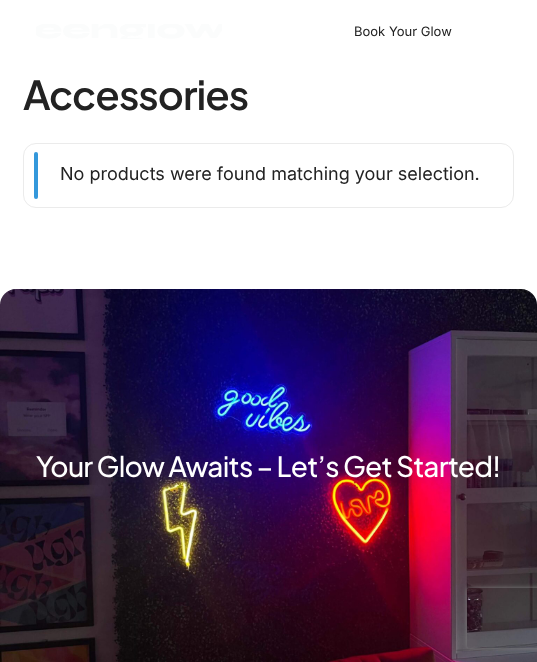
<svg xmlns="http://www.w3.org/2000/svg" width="537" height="662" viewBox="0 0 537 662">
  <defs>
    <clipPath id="clip1"><path d="M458 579H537V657H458ZM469 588H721C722 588 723 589 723 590V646C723 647 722 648 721 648H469C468 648 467 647 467 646V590C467 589 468 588 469 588Z" clip-rule="evenodd"/></clipPath>
  </defs>
  <rect width="100%" height="100%" fill="#fff"/>
  <image x="36" y="24" width="186" height="15" href="img/1.png"/>
  <rect x="23.5" y="143.5" width="490" height="64" rx="12.5" fill="none" stroke="#ebebeb"/>
  <rect x="34" y="152" width="4" height="47" rx="2" fill="#3498db"/>
  <image x="0" y="289" width="537" height="373" href="img/2.png"/>
  <g clip-path="url(#clip1)">
    <rect x="467" y="588" width="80" height="60" rx="2" fill="#808080" filter="blur(2.5px)"/>
  </g>
  <text x="354" y="36" font-family="Inter" font-size="13" fill="#222">Book Your Glow</text>
  <text x="23" y="110" font-family="Plus Jakarta Sans" font-size="40" font-weight="600" letter-spacing="-1" fill="#222">Accessories</text>
  <text x="60" y="180" font-family="Inter" font-size="18" fill="#222">No products were found matching your selection.</text>
  <text x="36" y="477" font-family="Plus Jakarta Sans" font-size="28" font-weight="500" letter-spacing="-0.75" fill="#fff">Your Glow Awaits – Let’s Get Started!</text>
</svg>
